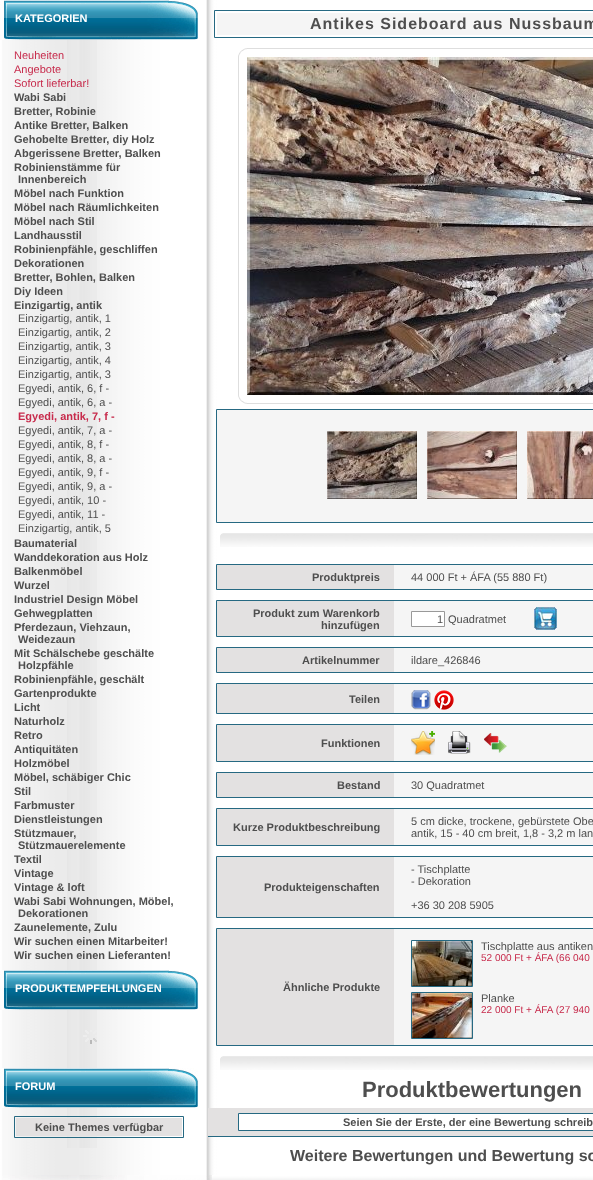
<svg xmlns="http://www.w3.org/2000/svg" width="593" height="1180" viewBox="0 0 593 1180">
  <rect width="100%" height="100%" fill="#fff"/>
  <image x="0" y="0" width="593" height="1175" href="img/1.png"/>
  <image x="0" y="0" width="198" height="40" href="img/2.png"/>
  <image x="67" y="40" width="30" height="930" href="img/3.png"/>
  <image x="0" y="970" width="198" height="40" href="img/2.png"/>
  <image x="67" y="1010" width="30" height="58" href="img/4.png"/>
  <image x="83" y="1030" width="14" height="14" href="img/5.png"/>
  <image x="0" y="1068" width="198" height="40" href="img/2.png"/>
  <image x="67" y="1108" width="30" height="40" href="img/6.png"/>
  <path d="M14.5 1116.5h169v21H14.5z" fill="none" stroke="#266982"/>
  <path d="M16 1118h166v18H16z" fill="#e3e1e1"/>
  <path d="M214.5 10.5h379v27H214.5z" fill="none" stroke="#266982"/>
  <path d="M217 13h376v22H217z" fill="#f5f5f5"/>
  <image x="238" y="48" width="9" height="9" href="img/7.png"/>
  <path d="M247 48h346v1H247z" fill="#dedede"/>
  <path d="M238 57h1v338H238z" fill="#dedede"/>
  <image x="247" y="57" width="346" height="338" href="img/8.png"/>
  <image x="238" y="395" width="9" height="9" href="img/9.png"/>
  <path d="M247 403h346v1H247z" fill="#dedede"/>
  <path d="M216.5 409.5h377v113H216.5z" fill="#f5f5f5" stroke="#266982"/>
  <image x="327" y="431" width="90" height="68" href="img/10.png"/>
  <image x="427" y="431" width="90" height="68" href="img/11.png"/>
  <image x="527" y="431" width="66" height="68" href="img/12.png"/>
  <image x="220" y="533" width="373" height="14" href="img/13.png"/>
  <path d="M216.5 564.5h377v25H216.5z" fill="none" stroke="#266982"/>
  <path d="M217 565h177v24H217z" fill="#e3e1e1"/>
  <path d="M394 565h199v24H394z" fill="#f5f5f5"/>
  <path d="M216.5 600.5h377v36H216.5z" fill="none" stroke="#266982"/>
  <path d="M217 601h177v35H217z" fill="#e3e1e1"/>
  <path d="M394 601h199v35H394z" fill="#f5f5f5"/>
  <path d="M411.5 611.5h33v15H411.5z" fill="#fff" stroke="#999"/>
  <image x="534" y="607" width="23" height="23" href="img/14.png"/>
  <path d="M216.5 647.5h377v25H216.5z" fill="none" stroke="#266982"/>
  <path d="M217 648h177v24H217z" fill="#e3e1e1"/>
  <path d="M394 648h199v24H394z" fill="#f5f5f5"/>
  <path d="M216.5 683.5h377v30H216.5z" fill="none" stroke="#266982"/>
  <path d="M217 684h177v29H217z" fill="#e3e1e1"/>
  <path d="M394 684h199v29H394z" fill="#f5f5f5"/>
  <image x="411" y="690" width="20" height="20" href="img/15.png"/>
  <image x="434" y="690" width="20" height="20" href="img/16.png"/>
  <path d="M216.5 724.5h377v37H216.5z" fill="none" stroke="#266982"/>
  <path d="M217 725h177v36H217z" fill="#e3e1e1"/>
  <path d="M394 725h199v36H394z" fill="#f5f5f5"/>
  <image x="411" y="731" width="24" height="24" href="img/17.png"/>
  <image x="448" y="731" width="23" height="23" href="img/18.png"/>
  <image x="484" y="733" width="23" height="20" href="img/19.png"/>
  <path d="M216.5 772.5h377v25H216.5z" fill="none" stroke="#266982"/>
  <path d="M217 773h177v24H217z" fill="#e3e1e1"/>
  <path d="M394 773h199v24H394z" fill="#f5f5f5"/>
  <path d="M216.5 808.5h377v37H216.5z" fill="none" stroke="#266982"/>
  <path d="M217 809h177v36H217z" fill="#e3e1e1"/>
  <path d="M394 809h199v36H394z" fill="#f5f5f5"/>
  <path d="M216.5 856.5h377v61H216.5z" fill="none" stroke="#266982"/>
  <path d="M217 857h177v60H217z" fill="#e3e1e1"/>
  <path d="M394 857h199v60H394z" fill="#f5f5f5"/>
  <path d="M216.5 928.5h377v117H216.5z" fill="none" stroke="#266982"/>
  <path d="M217 929h177v116H217z" fill="#e3e1e1"/>
  <path d="M394 929h199v116H394z" fill="#f5f5f5"/>
  <path d="M411.5 940.5h61v46H411.5z" fill="none" stroke="#266982"/>
  <image x="412" y="941" width="60" height="45" href="img/20.png"/>
  <path d="M411.5 992.5h61v46H411.5z" fill="none" stroke="#266982"/>
  <image x="412" y="993" width="60" height="45" href="img/21.png"/>
  <image x="220" y="1056" width="373" height="14" href="img/13.png"/>
  <path d="M208 1108h385v28H208z" fill="#e3e1e1"/>
  <path d="M208 1136h385v1H208z" fill="#266982"/>
  <path d="M238.5 1113.5h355v17H238.5z" fill="#fff" stroke="#266982"/>
  <image x="0" y="1175" width="593" height="5" href="img/22.png"/>
  <text x="15" y="22" font-family="Liberation Sans" font-size="11" font-weight="bold" fill="#fff">KATEGORIEN</text>
  <g font-family="Liberation Sans" font-size="11" fill="#c72a4b">
    <text x="14" y="59">Neuheiten</text>
    <text x="14" y="73">Angebote</text>
    <text x="14" y="87">Sofort lieferbar!</text>
  </g>
  <g font-family="Liberation Sans" font-size="11" font-weight="bold" fill="#4e4e4e">
    <text x="14" y="101">Wabi Sabi</text>
    <text x="14" y="115">Bretter, Robinie</text>
    <text x="14" y="129">Antike Bretter, Balken</text>
    <text x="14" y="143">Gehobelte Bretter, diy Holz</text>
    <text x="14" y="157">Abgerissene Bretter, Balken</text>
    <text x="14" y="171">Robinienstämme für</text>
    <text x="18" y="183">Innenbereich</text>
    <text x="14" y="197">Möbel nach Funktion</text>
    <text x="14" y="211">Möbel nach Räumlichkeiten</text>
    <text x="14" y="225">Möbel nach Stil</text>
    <text x="14" y="239">Landhausstil</text>
    <text x="14" y="253">Robinienpfähle, geschliffen</text>
    <text x="14" y="267">Dekorationen</text>
    <text x="14" y="281">Bretter, Bohlen, Balken</text>
    <text x="14" y="295">Diy Ideen</text>
    <text x="14" y="309">Einzigartig, antik</text>
  </g>
  <g font-family="Liberation Sans" font-size="11" fill="#4e4e4e">
    <text x="18" y="322">Einzigartig, antik, 1</text>
    <text x="18" y="336">Einzigartig, antik, 2</text>
    <text x="18" y="350">Einzigartig, antik, 3</text>
    <text x="18" y="364">Einzigartig, antik, 4</text>
    <text x="18" y="378">Einzigartig, antik, 3</text>
    <text x="18" y="392">Egyedi, antik, 6, f -</text>
    <text x="18" y="406">Egyedi, antik, 6, a -</text>
  </g>
  <text x="18" y="420" font-family="Liberation Sans" font-size="11" font-weight="bold" fill="#c72a4b">Egyedi, antik, 7, f -</text>
  <g font-family="Liberation Sans" font-size="11" fill="#4e4e4e">
    <text x="18" y="434">Egyedi, antik, 7, a -</text>
    <text x="18" y="448">Egyedi, antik, 8, f -</text>
    <text x="18" y="462">Egyedi, antik, 8, a -</text>
    <text x="18" y="476">Egyedi, antik, 9, f -</text>
    <text x="18" y="490">Egyedi, antik, 9, a -</text>
    <text x="18" y="504">Egyedi, antik, 10 -</text>
    <text x="18" y="518">Egyedi, antik, 11 -</text>
    <text x="18" y="532">Einzigartig, antik, 5</text>
  </g>
  <g font-family="Liberation Sans" font-size="11" font-weight="bold" fill="#4e4e4e">
    <text x="14" y="547">Baumaterial</text>
    <text x="14" y="561">Wanddekoration aus Holz</text>
    <text x="14" y="575">Balkenmöbel</text>
    <text x="14" y="589">Wurzel</text>
    <text x="14" y="603">Industriel Design Möbel</text>
    <text x="14" y="617">Gehwegplatten</text>
    <text x="14" y="631">Pferdezaun, Viehzaun,</text>
    <text x="18" y="643">Weidezaun</text>
    <text x="14" y="657">Mit Schälschebe geschälte</text>
    <text x="18" y="669">Holzpfähle</text>
    <text x="14" y="683">Robinienpfähle, geschält</text>
    <text x="14" y="697">Gartenprodukte</text>
    <text x="14" y="711">Licht</text>
    <text x="14" y="725">Naturholz</text>
    <text x="14" y="739">Retro</text>
    <text x="14" y="753">Antiquitäten</text>
    <text x="14" y="767">Holzmöbel</text>
    <text x="14" y="781">Möbel, schäbiger Chic</text>
    <text x="14" y="795">Stil</text>
    <text x="14" y="809">Farbmuster</text>
    <text x="14" y="823">Dienstleistungen</text>
    <text x="14" y="837">Stützmauer,</text>
    <text x="18" y="849">Stützmauerelemente</text>
    <text x="14" y="863">Textil</text>
    <text x="14" y="877">Vintage</text>
    <text x="14" y="891">Vintage &amp; loft</text>
    <text x="14" y="905">Wabi Sabi Wohnungen, Möbel,</text>
    <text x="18" y="917">Dekorationen</text>
    <text x="14" y="931">Zaunelemente, Zulu</text>
    <text x="14" y="945">Wir suchen einen Mitarbeiter!</text>
    <text x="14" y="959">Wir suchen einen Lieferanten!</text>
  </g>
  <g font-family="Liberation Sans" font-size="11" font-weight="bold" fill="#fff">
    <text x="15" y="992">PRODUKTEMPFEHLUNGEN</text>
    <text x="15" y="1090">FORUM</text>
  </g>
  <text x="35" y="1131" font-family="Liberation Sans" font-size="11" font-weight="bold" fill="#4e4e4e">Keine Themes verfügbar</text>
  <text x="310" y="29" font-family="Liberation Sans" font-size="16" font-weight="bold" letter-spacing="1" fill="#4e4e4e">Antikes Sideboard aus Nussbaum</text>
  <text x="312" y="581" font-family="Liberation Sans" font-size="11" font-weight="bold" fill="#4e4e4e">Produktpreis</text>
  <text x="411" y="581" font-family="Liberation Sans" font-size="11" fill="#4e4e4e">44 000 Ft + ÁFA (55 880 Ft)</text>
  <g font-family="Liberation Sans" font-size="11" font-weight="bold" fill="#4e4e4e">
    <text x="253" y="617">Produkt zum Warenkorb</text>
    <text x="321" y="629">hinzufügen</text>
  </g>
  <g font-family="Liberation Sans" font-size="11" fill="#4e4e4e">
    <text x="437" y="623">1</text>
    <text x="448" y="623">Quadratmet</text>
  </g>
  <text x="302" y="664" font-family="Liberation Sans" font-size="11" font-weight="bold" fill="#4e4e4e">Artikelnummer</text>
  <text x="411" y="664" font-family="Liberation Sans" font-size="11" fill="#4e4e4e">ildare_426846</text>
  <g font-family="Liberation Sans" font-size="11" font-weight="bold" fill="#4e4e4e">
    <text x="349" y="703">Teilen</text>
    <text x="321" y="747">Funktionen</text>
    <text x="337" y="789">Bestand</text>
  </g>
  <text x="411" y="789" font-family="Liberation Sans" font-size="11" fill="#4e4e4e">30 Quadratmet</text>
  <text x="233" y="831" font-family="Liberation Sans" font-size="11" font-weight="bold" fill="#4e4e4e">Kurze Produktbeschreibung</text>
  <g font-family="Liberation Sans" font-size="11" fill="#4e4e4e">
    <text x="411" y="825">5 cm dicke, trockene, gebürstete Obe</text>
    <text x="411" y="837">antik, 15 - 40 cm breit, 1,8 - 3,2 m lan</text>
  </g>
  <text x="264" y="891" font-family="Liberation Sans" font-size="11" font-weight="bold" fill="#4e4e4e">Produkteigenschaften</text>
  <g font-family="Liberation Sans" font-size="11" fill="#4e4e4e">
    <text x="411" y="873">- Tischplatte</text>
    <text x="411" y="885">- Dekoration</text>
    <text x="411" y="909">+36 30 208 5905</text>
  </g>
  <text x="283" y="991" font-family="Liberation Sans" font-size="11" font-weight="bold" fill="#4e4e4e">Ähnliche Produkte</text>
  <text x="481" y="950" font-family="Liberation Sans" font-size="11" fill="#4e4e4e">Tischplatte aus antiken</text>
  <text x="481" y="961" font-family="Liberation Sans" font-size="10" fill="#c72a4b">52 000 Ft + ÁFA (66 040</text>
  <text x="481" y="1002" font-family="Liberation Sans" font-size="11" fill="#4e4e4e">Planke</text>
  <text x="481" y="1013" font-family="Liberation Sans" font-size="10" fill="#c72a4b">22 000 Ft + ÁFA (27 940</text>
  <text x="362" y="1097" font-family="Liberation Sans" font-size="22" font-weight="bold" fill="#4e4e4e">Produktbewertungen</text>
  <text x="343" y="1126" font-family="Liberation Sans" font-size="11" font-weight="bold" fill="#4e4e4e">Seien Sie der Erste, der eine Bewertung schreib</text>
  <text x="290" y="1161" font-family="Liberation Sans" font-size="16" font-weight="bold" fill="#4e4e4e">Weitere Bewertungen und Bewertung sc</text>
</svg>
